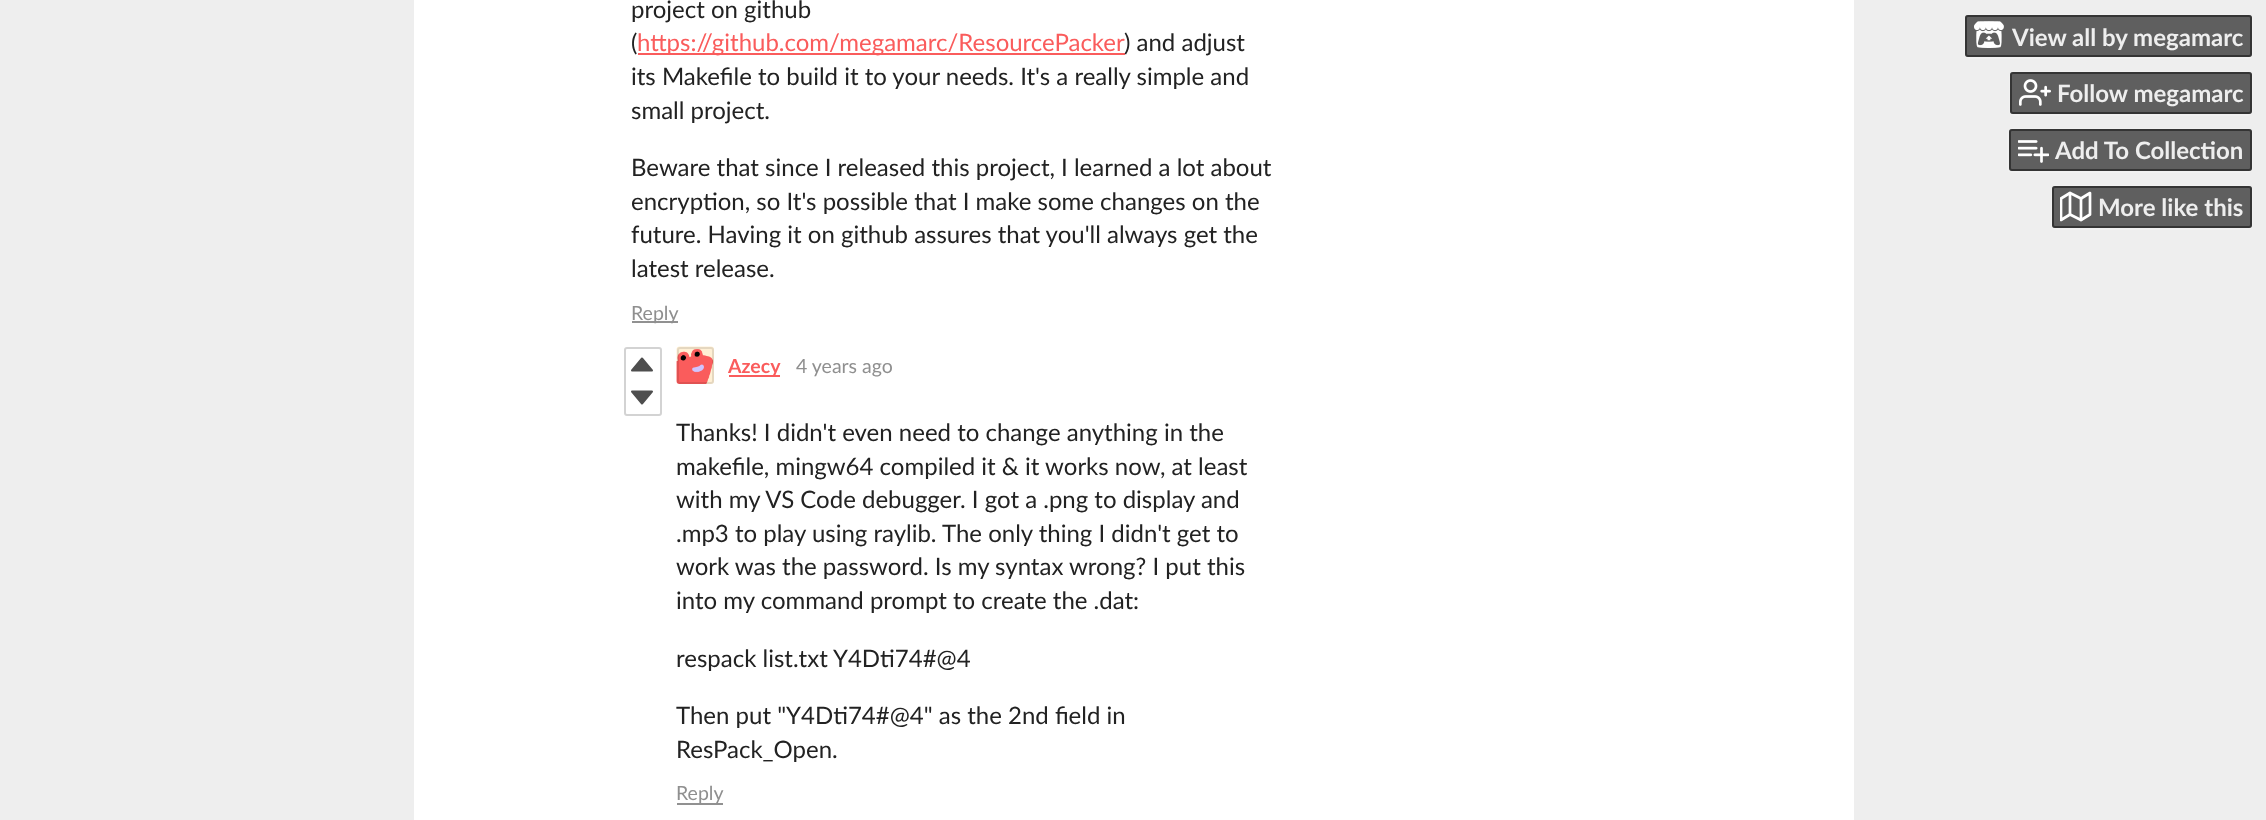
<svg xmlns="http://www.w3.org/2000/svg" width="2266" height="820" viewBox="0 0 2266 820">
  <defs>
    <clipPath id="clip1"><path d="M2060 191h33v31H2060z"/></clipPath>
  </defs>
  <rect width="100%" height="100%" fill="#eee"/>
  <path d="M414 0h1440v820H414z" fill="#fff"/>
  <path d="M638 53h487v2H638z" fill="#fa5c5c"/>
  <path d="M632 321h46v2H632z" fill="#919191"/>
  <rect x="625" y="348" width="36" height="67" rx="2" fill="none" stroke="#d3d3d3" stroke-width="2"/>
  <path d="M632 370.5L642 358.5L652 370.5Z" fill="#4e4e4e" stroke="#4e4e4e" stroke-width="2" stroke-linejoin="round"/>
  <path d="M632 391.5L642 403.5L652 391.5Z" fill="#4e4e4e" stroke="#4e4e4e" stroke-width="2" stroke-linejoin="round"/>
  <image x="676" y="346" width="38" height="38" href="img/1.png"/>
  <rect x="678" y="348" width="35" height="35" rx="2" fill="none" stroke="#0000001a" stroke-width="2"/>
  <path d="M729 375h51v2H729z" fill="#fa5c5c"/>
  <path d="M677 803h46v2H677z" fill="#919191"/>
  <rect x="1965" y="15" width="287" height="43" rx="4" fill="none" stroke="#f1f1f1" stroke-width="2"/>
  <rect x="1965" y="15" width="287" height="42" rx="3" fill="#00000099"/>
  <rect x="1966" y="16" width="285" height="40" rx="2" fill="none" stroke="#0a0a0a80" stroke-width="2"/>
  <image x="1974" y="21" width="30" height="27" href="img/2.png"/>
  <rect x="2010" y="72" width="242" height="43" rx="4" fill="none" stroke="#f1f1f1" stroke-width="2"/>
  <rect x="2010" y="72" width="242" height="42" rx="3" fill="#00000099"/>
  <rect x="2011" y="73" width="240" height="40" rx="2" fill="none" stroke="#0a0a0a80" stroke-width="2"/>
  <image x="2019" y="79" width="32" height="27" href="img/3.png"/>
  <rect x="2008" y="129" width="244" height="43" rx="4" fill="none" stroke="#f1f1f1" stroke-width="2"/>
  <rect x="2009" y="129" width="243" height="42" rx="3" fill="#00000099"/>
  <rect x="2010" y="130" width="241" height="40" rx="2" fill="none" stroke="#0a0a0a80" stroke-width="2"/>
  <image x="2018" y="140" width="31" height="23" href="img/4.png"/>
  <rect x="2052" y="186" width="200" height="43" rx="4" fill="none" stroke="#f1f1f1" stroke-width="2"/>
  <rect x="2052" y="186" width="200" height="42" rx="3" fill="#00000099"/>
  <rect x="2053" y="187" width="198" height="40" rx="2" fill="none" stroke="#0a0a0a80" stroke-width="2"/>
  <g clip-path="url(#clip1)">
    <path d="M2061 198.5V220L2070 214.5L2081 220L2090 214.5V193L2081 198.5L2070 193Z" fill="none" stroke="#fff" stroke-width="2.7" stroke-linecap="round" stroke-linejoin="round"/>
  </g>
  <path d="M2070 193V214.5M2081 198.5V220" fill="none" stroke="#fff" stroke-width="2.7" stroke-linecap="round" stroke-linejoin="round"/>
  <g font-family="Lato" font-size="24" fill="#222">
    <text x="631" y="18">project on github</text>
    <text x="631" y="51">(</text>
  </g>
  <text x="637" y="51" font-family="Lato" font-size="24" fill="#fa5c5c">https://github.com/megamarc/ResourcePacker</text>
  <g font-family="Lato" font-size="24" fill="#222">
    <text x="1124" y="51">) and adjust</text>
    <text x="631" y="85">its Makefile to build it to your needs. It's a really simple and</text>
    <text x="631" y="119">small project.</text>
    <text x="631" y="176">Beware that since I released this project, I learned a lot about</text>
    <text x="631" y="210">encryption, so It's possible that I make some changes on the</text>
    <text x="631" y="243">future. Having it on github assures that you'll always get the</text>
    <text x="631" y="277">latest release.</text>
  </g>
  <text x="631" y="320" font-family="Lato" font-size="19.5" fill="#8f8f8f">Reply</text>
  <text x="728" y="373" font-family="Lato" font-size="19.5" font-weight="bold" fill="#fa5c5c">Azecy</text>
  <text x="796" y="373" font-family="Lato" font-size="19.5" fill="#8f8f8f">4 years ago</text>
  <g font-family="Lato" font-size="24" fill="#222">
    <text x="676" y="441">Thanks! I didn't even need to change anything in the</text>
    <text x="676" y="475">makefile, mingw64 compiled it &amp; it works now, at least</text>
    <text x="676" y="508">with my VS Code debugger. I got a .png to display and</text>
    <text x="676" y="542">.mp3 to play using raylib. The only thing I didn't get to</text>
    <text x="676" y="575">work was the password. Is my syntax wrong? I put this</text>
    <text x="676" y="609">into my command prompt to create the .dat:</text>
    <text x="676" y="667">respack list.txt Y4Dti74#@4</text>
    <text x="676" y="724">Then put "Y4Dti74#@4" as the 2nd field in</text>
    <text x="676" y="758">ResPack_Open.</text>
  </g>
  <text x="676" y="800" font-family="Lato" font-size="19.5" fill="#8f8f8f">Reply</text>
  <g font-family="Lato" font-size="24" font-weight="bold" fill="#eee">
    <text x="2012" y="46">View all by megamarc</text>
    <text x="2057" y="102">Follow megamarc</text>
    <text x="2055" y="159">Add To Collection</text>
    <text x="2098" y="216">More like this</text>
  </g>
</svg>
